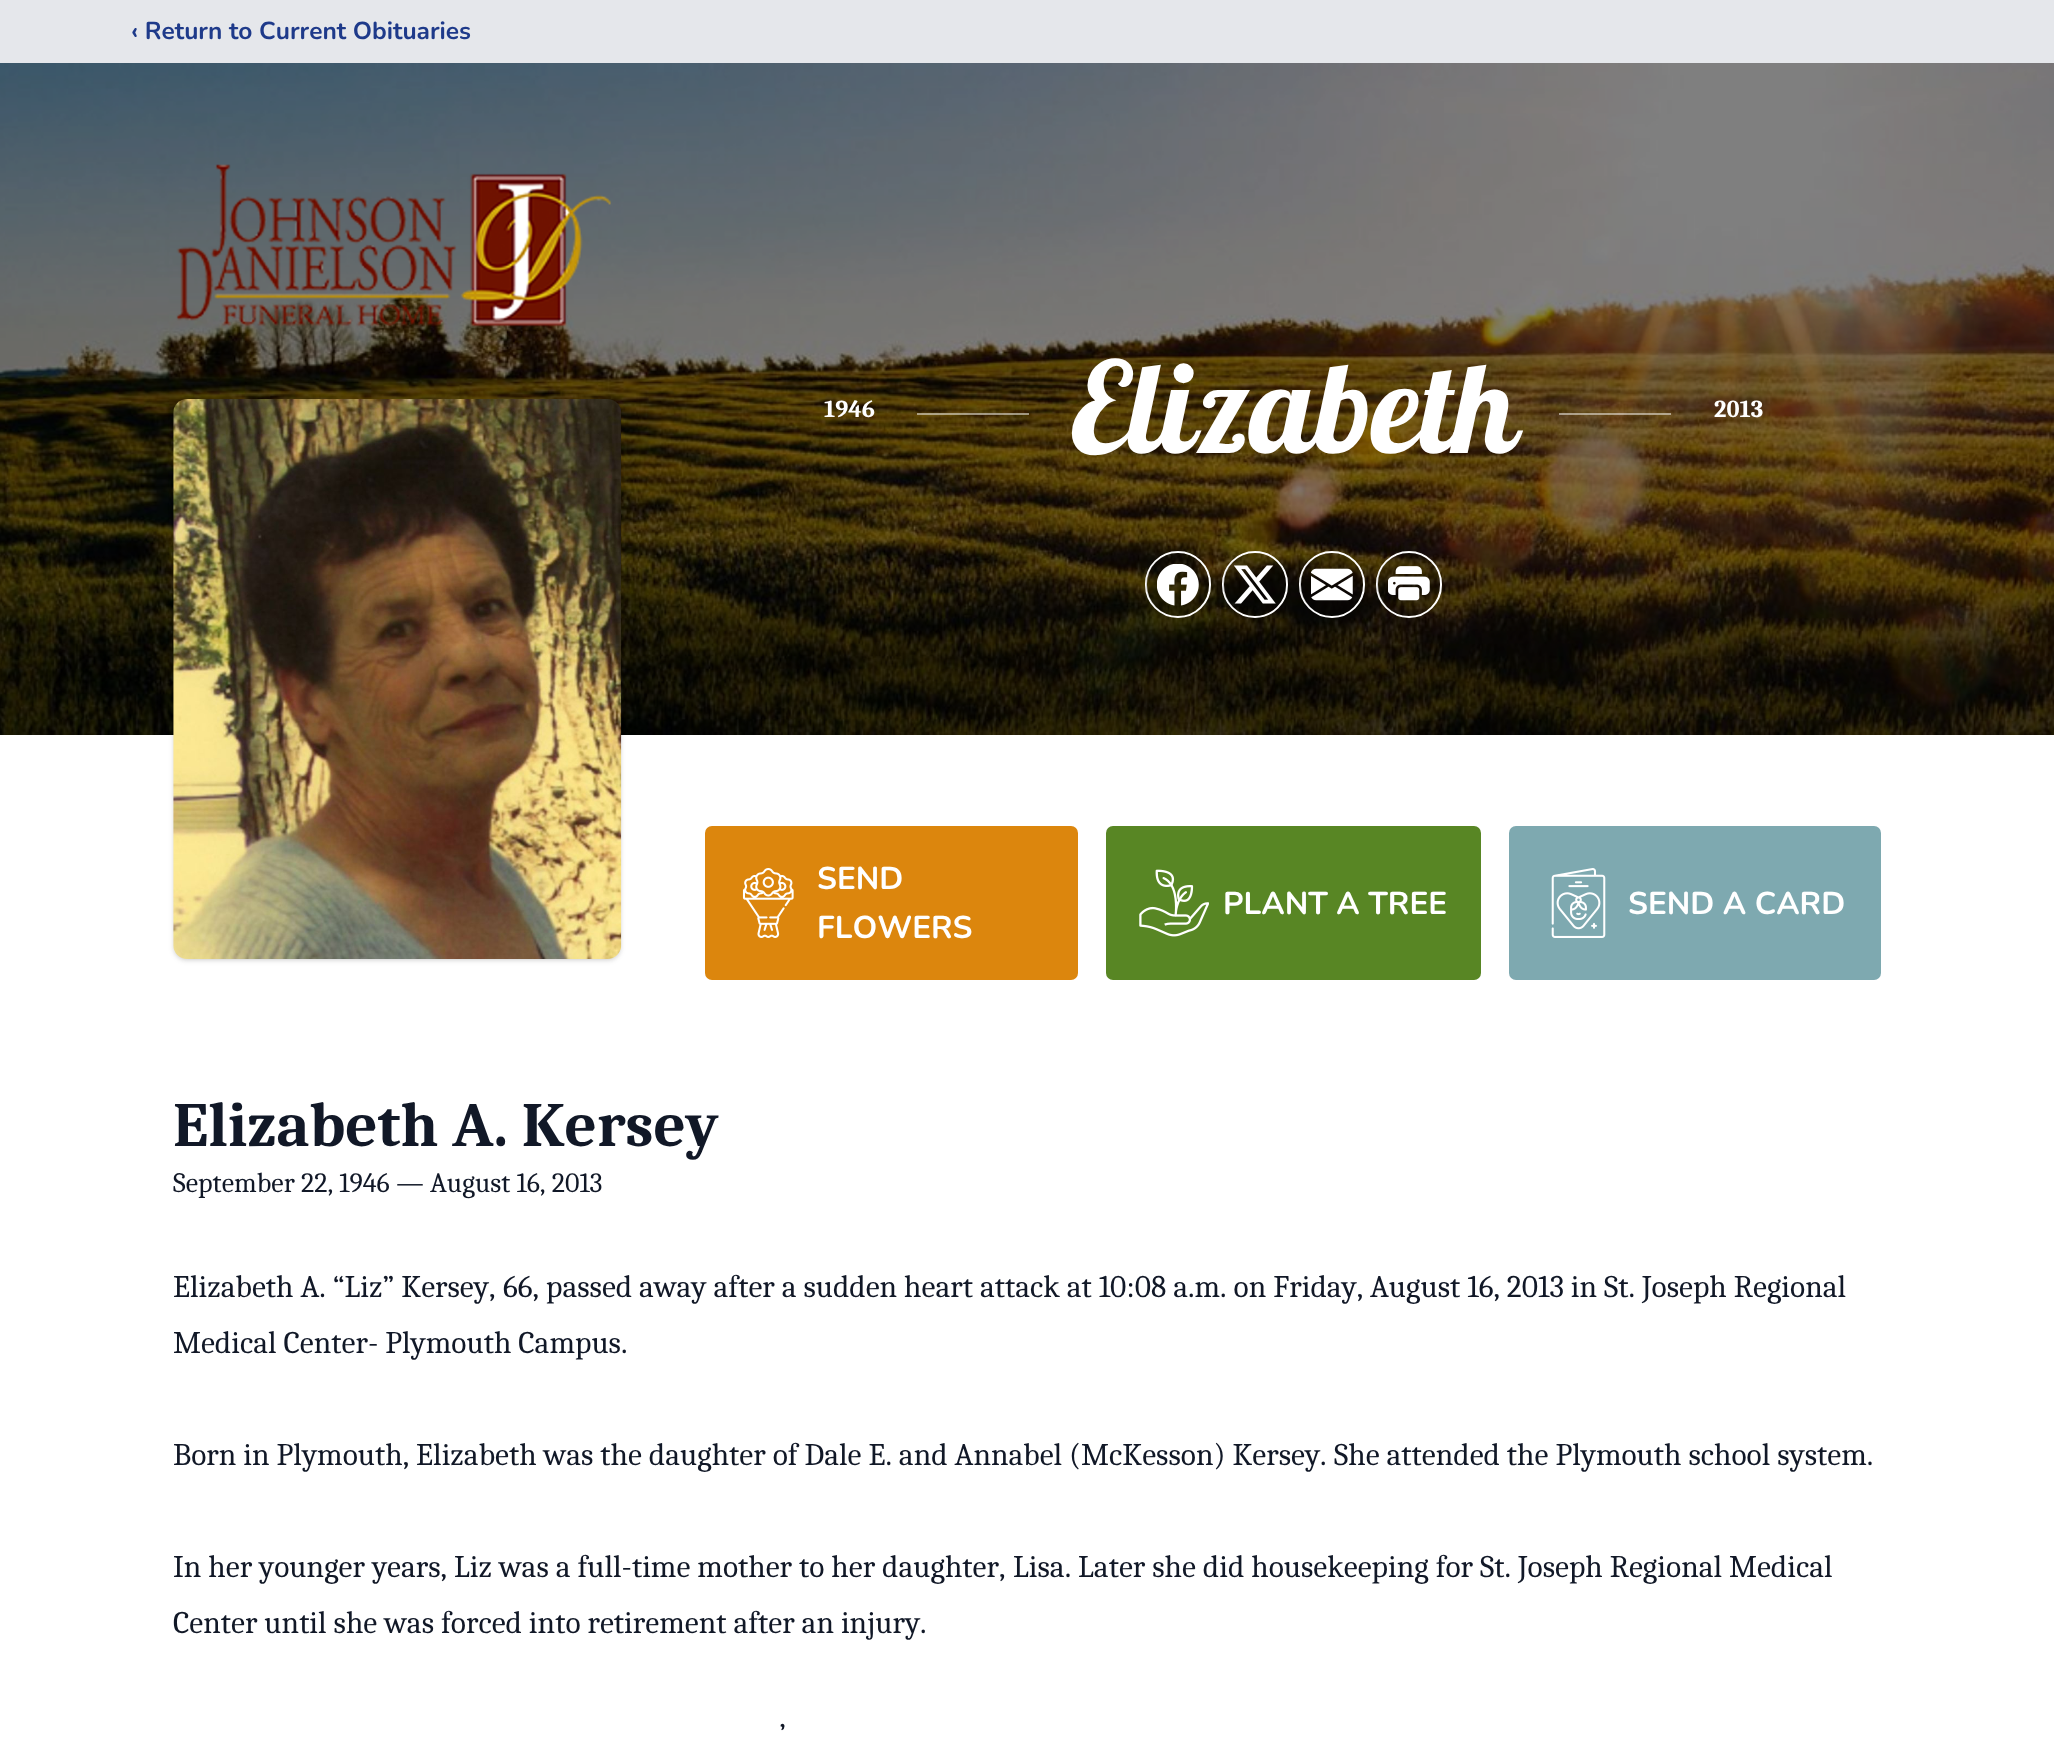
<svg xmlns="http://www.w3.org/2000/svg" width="2054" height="1739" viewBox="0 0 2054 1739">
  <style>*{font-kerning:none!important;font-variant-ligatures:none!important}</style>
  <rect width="100%" height="100%" fill="#fff"/>
  <path d="M0 0h2054v63H0z" fill="#e5e7eb"/>
  <image x="0" y="63" width="2054" height="672" href="img/1.png"/>
  <image x="176" y="164" width="435" height="163" href="img/2.png"/>
  <rect x="175" y="403" width="445" height="556" rx="12" fill="#0000001a" filter="blur(2px)"/>
  <rect x="173" y="401" width="448" height="560" rx="14" fill="#0000001a" filter="blur(2.5px)"/>
  <image x="173" y="399" width="449" height="560" href="img/3.png"/>
  <path d="M917 413h112v2H917z" fill="#ffffff80"/>
  <path d="M1559 413h112v2H1559z" fill="#ffffff80"/>
  <rect x="1146" y="552" width="64" height="65" rx="32" fill="none" stroke="#fff" stroke-width="2"/>
  <circle cx="1177.5" cy="584.5" r="31.5" fill="#00000033"/>
  <image x="1157" y="564" width="42" height="42" href="img/4.png"/>
  <rect x="1223" y="552" width="64" height="65" rx="32" fill="none" stroke="#fff" stroke-width="2"/>
  <circle cx="1254.5" cy="584.5" r="31.5" fill="#00000033"/>
  <image x="1234" y="565" width="42" height="39" href="img/5.png"/>
  <rect x="1300" y="552" width="64" height="65" rx="32" fill="none" stroke="#fff" stroke-width="2"/>
  <circle cx="1331.5" cy="584.5" r="31.5" fill="#00000033"/>
  <image x="1311" y="568" width="42" height="33" href="img/6.png"/>
  <rect x="1377" y="552" width="64" height="65" rx="32" fill="none" stroke="#fff" stroke-width="2"/>
  <circle cx="1408.5" cy="584.5" r="31.5" fill="#00000033"/>
  <image x="1388" y="566" width="42" height="35" href="img/7.png"/>
  <rect x="705" y="826" width="373" height="154" rx="7" fill="#dc860d"/>
  <image x="742" y="868" width="52" height="70" href="img/8.png"/>
  <rect x="1106" y="826" width="375" height="154" rx="7" fill="#588624"/>
  <image x="1139" y="869" width="70" height="68" href="img/9.png"/>
  <rect x="1509" y="826" width="372" height="154" rx="7" fill="#7ea9b0"/>
  <image x="1551" y="868" width="55" height="70" href="img/10.png"/>
  <text x="131" y="39" font-family="Nunito" font-size="24.5" font-weight="bold" fill="#1e3a8a">‹ Return to Current Obituaries</text>
  <text x="824" y="417" font-family="Caladea" font-size="24.5" font-weight="bold" fill="#fff">1946</text>
  <text x="1071" y="453" font-family="Lobster" font-size="126" fill="#fff">Elizabeth</text>
  <text x="1714" y="417" font-family="Caladea" font-size="24.5" font-weight="bold" fill="#fff">2013</text>
  <g font-family="Nunito" font-size="31.5" font-weight="bold" fill="#fff">
    <text x="817" y="889">SEND</text>
    <text x="817" y="938">FLOWERS</text>
    <text x="1223" y="914">PLANT A TREE</text>
    <text x="1628" y="914">SEND A CARD</text>
  </g>
  <text x="173" y="1146" font-family="Caladea" font-size="63" font-weight="bold" fill="#111827">Elizabeth A. Kersey</text>
  <text x="173" y="1192" font-family="Caladea" font-size="28" fill="#111827">September 22, 1946 — August 16, 2013</text>
  <g font-family="Caladea" font-size="31.5" fill="#111827">
    <text x="173" y="1297">Elizabeth A. “Liz” Kersey,</text>
    <text x="503" y="1297">66, passed away after a sudden heart attack at 10:08 a.m. on Friday,</text>
    <text x="1370" y="1297">August 16, 2013 in St. Joseph Regional</text>
    <text x="173" y="1353">Medical Center- Plymouth Campus.</text>
    <text x="173" y="1465">Born in Plymouth, Elizabeth was the daughter of Dale E. and Annabel (McKesson) Kersey.</text>
    <text x="1334" y="1465">She attended the Plymouth school system.</text>
    <text x="173" y="1577">In her younger years, Liz was a full-time mother to her daughter,</text>
    <text x="1013" y="1577">Lisa. Later she did housekeeping for St. Joseph Regional Medical</text>
    <text x="173" y="1633">Center until she was forced into retirement after an injury.</text>
    <text x="779" y="1745">’</text>
  </g>
</svg>
